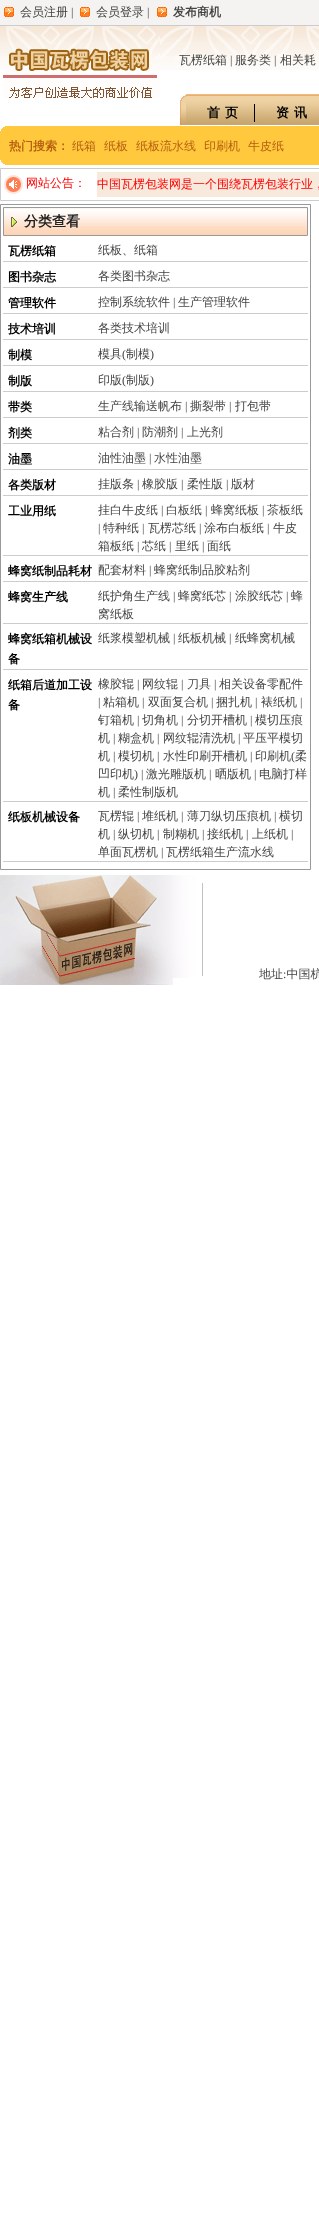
<svg xmlns="http://www.w3.org/2000/svg" width="319" height="2221" viewBox="0 0 319 2221">
  <rect width="100%" height="100%" fill="#fff"/>
  <path d="M0 0h319v25H0z" fill="#f4f3f1"/>
  <path d="M0 25h319v1H0z" fill="#ccc"/>
  <image x="4" y="7" width="10" height="10" href="img/1.png"/>
  <image x="80" y="7" width="10" height="10" href="img/1.png"/>
  <image x="157" y="7" width="10" height="10" href="img/1.png"/>
  <image x="0" y="26" width="319" height="44" href="img/2.png"/>
  <image x="3" y="26" width="157" height="72" href="img/3.png"/>
  <image x="179" y="95" width="7" height="30" href="img/4.png"/>
  <image x="186" y="94" width="133" height="31" href="img/5.png"/>
  <path d="M254 104h1v18H254z" fill="#000"/>
  <image x="0" y="126" width="9" height="39" href="img/6.png"/>
  <path d="M9 126h310v39H9z" fill="#ffc83d"/>
  <path d="M0.5 168.5h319v32H0.5z" fill="none" stroke="#ccc"/>
  <image x="4" y="175" width="19" height="19" href="img/7.png"/>
  <path d="M97 172h222v25H97z" fill="#f7eadd"/>
  <path d="M0.5 204.5h310v665H0.5z" fill="none" stroke="#999"/>
  <image x="4" y="208" width="303" height="27" href="img/8.png"/>
  <path d="M3.5 207.5h304v28H3.5z" fill="none" stroke="#999"/>
  <image x="11" y="217" width="6" height="10" href="img/9.png"/>
  <path d="M3 261h305v1H3z" fill="#ccc"/>
  <path d="M3 287h305v1H3z" fill="#ccc"/>
  <path d="M3 313h305v1H3z" fill="#ccc"/>
  <path d="M3 339h305v1H3z" fill="#ccc"/>
  <path d="M3 365h305v1H3z" fill="#ccc"/>
  <path d="M3 391h305v1H3z" fill="#ccc"/>
  <path d="M3 417h305v1H3z" fill="#ccc"/>
  <path d="M3 443h305v1H3z" fill="#ccc"/>
  <path d="M3 469h305v1H3z" fill="#ccc"/>
  <path d="M3 495h305v1H3z" fill="#ccc"/>
  <path d="M3 555h305v1H3z" fill="#ccc"/>
  <path d="M3 581h305v1H3z" fill="#ccc"/>
  <path d="M3 623h305v1H3z" fill="#ccc"/>
  <path d="M3 669h305v1H3z" fill="#ccc"/>
  <path d="M3 801h305v1H3z" fill="#ccc"/>
  <path d="M3 861h305v1H3z" fill="#ccc"/>
  <image x="0" y="875" width="203" height="110" href="img/10.png"/>
  <text x="20" y="16" font-family="WenQuanYi Zen Hei" font-size="12" font-weight="500" fill="#444">会员注册</text>
  <text x="71" y="16" font-family="Liberation Serif" font-size="12" fill="#444">|</text>
  <text x="96" y="16" font-family="WenQuanYi Zen Hei" font-size="12" font-weight="500" fill="#444">会员登录</text>
  <text x="147" y="16" font-family="Liberation Serif" font-size="12" fill="#444">|</text>
  <text x="173" y="16" font-family="WenQuanYi Zen Hei" font-size="12" font-weight="bold" fill="#444">发布商机</text>
  <text x="179" y="64" font-family="WenQuanYi Zen Hei" font-size="12" font-weight="500" fill="#444">瓦楞纸箱</text>
  <text x="230" y="64" font-family="Liberation Serif" font-size="12" fill="#444">|</text>
  <text x="235" y="64" font-family="WenQuanYi Zen Hei" font-size="12" font-weight="500" fill="#444">服务类</text>
  <text x="274" y="64" font-family="Liberation Serif" font-size="12" fill="#444">|</text>
  <text x="280" y="64" font-family="WenQuanYi Zen Hei" font-size="12" font-weight="500" fill="#444">相关耗</text>
  <g font-family="WenQuanYi Zen Hei" font-size="13" font-weight="bold" letter-spacing="5" fill="#000">
    <text x="207" y="117">首页</text>
    <text x="276" y="117">资讯</text>
  </g>
  <text x="9" y="150" font-family="WenQuanYi Zen Hei" font-size="12" font-weight="bold" fill="#b65f10">热门搜索：</text>
  <g font-family="WenQuanYi Zen Hei" font-size="12" font-weight="500" fill="#b65f10">
    <text x="72" y="150">纸箱</text>
    <text x="104" y="150">纸板</text>
    <text x="136" y="150">纸板流水线</text>
    <text x="204" y="150">印刷机</text>
    <text x="248" y="150">牛皮纸</text>
  </g>
  <g font-family="WenQuanYi Zen Hei" font-size="12" font-weight="500" fill="#f00">
    <text x="26" y="187">网站公告：</text>
    <text x="97" y="188">中国瓦楞包装网是一个围绕瓦楞包装行业，</text>
  </g>
  <text x="24" y="226" font-family="WenQuanYi Zen Hei" font-size="14" font-weight="bold" fill="#222">分类查看</text>
  <text x="8" y="255" font-family="WenQuanYi Zen Hei" font-size="12" font-weight="bold" fill="#000">瓦楞纸箱</text>
  <text x="98" y="254" font-family="WenQuanYi Zen Hei" font-size="12" font-weight="500" fill="#444">纸板、纸箱</text>
  <text x="8" y="281" font-family="WenQuanYi Zen Hei" font-size="12" font-weight="bold" fill="#000">图书杂志</text>
  <text x="98" y="280" font-family="WenQuanYi Zen Hei" font-size="12" font-weight="500" fill="#444">各类图书杂志</text>
  <text x="8" y="307" font-family="WenQuanYi Zen Hei" font-size="12" font-weight="bold" fill="#000">管理软件</text>
  <text x="98" y="306" font-family="WenQuanYi Zen Hei" font-size="12" font-weight="500" fill="#444">控制系统软件</text>
  <text x="173" y="306" font-family="Liberation Serif" font-size="12" fill="#444">|</text>
  <text x="178" y="306" font-family="WenQuanYi Zen Hei" font-size="12" font-weight="500" fill="#444">生产管理软件</text>
  <text x="8" y="333" font-family="WenQuanYi Zen Hei" font-size="12" font-weight="bold" fill="#000">技术培训</text>
  <text x="98" y="332" font-family="WenQuanYi Zen Hei" font-size="12" font-weight="500" fill="#444">各类技术培训</text>
  <text x="8" y="359" font-family="WenQuanYi Zen Hei" font-size="12" font-weight="bold" fill="#000">制模</text>
  <text x="98" y="358" font-family="WenQuanYi Zen Hei" font-size="12" font-weight="500" fill="#444">模具</text>
  <text x="122" y="358" font-family="Liberation Serif" font-size="12" fill="#444">(</text>
  <text x="126" y="358" font-family="WenQuanYi Zen Hei" font-size="12" font-weight="500" fill="#444">制模</text>
  <text x="150" y="358" font-family="Liberation Serif" font-size="12" fill="#444">)</text>
  <text x="8" y="385" font-family="WenQuanYi Zen Hei" font-size="12" font-weight="bold" fill="#000">制版</text>
  <text x="98" y="384" font-family="WenQuanYi Zen Hei" font-size="12" font-weight="500" fill="#444">印版</text>
  <text x="122" y="384" font-family="Liberation Serif" font-size="12" fill="#444">(</text>
  <text x="126" y="384" font-family="WenQuanYi Zen Hei" font-size="12" font-weight="500" fill="#444">制版</text>
  <text x="150" y="384" font-family="Liberation Serif" font-size="12" fill="#444">)</text>
  <text x="8" y="411" font-family="WenQuanYi Zen Hei" font-size="12" font-weight="bold" fill="#000">带类</text>
  <text x="98" y="410" font-family="WenQuanYi Zen Hei" font-size="12" font-weight="500" fill="#444">生产线输送帆布</text>
  <text x="185" y="410" font-family="Liberation Serif" font-size="12" fill="#444">|</text>
  <text x="190" y="410" font-family="WenQuanYi Zen Hei" font-size="12" font-weight="500" fill="#444">撕裂带</text>
  <text x="229" y="410" font-family="Liberation Serif" font-size="12" fill="#444">|</text>
  <text x="235" y="410" font-family="WenQuanYi Zen Hei" font-size="12" font-weight="500" fill="#444">打包带</text>
  <text x="8" y="437" font-family="WenQuanYi Zen Hei" font-size="12" font-weight="bold" fill="#000">剂类</text>
  <text x="98" y="436" font-family="WenQuanYi Zen Hei" font-size="12" font-weight="500" fill="#444">粘合剂</text>
  <text x="137" y="436" font-family="Liberation Serif" font-size="12" fill="#444">|</text>
  <text x="142" y="436" font-family="WenQuanYi Zen Hei" font-size="12" font-weight="500" fill="#444">防潮剂</text>
  <text x="181" y="436" font-family="Liberation Serif" font-size="12" fill="#444">|</text>
  <text x="187" y="436" font-family="WenQuanYi Zen Hei" font-size="12" font-weight="500" fill="#444">上光剂</text>
  <text x="8" y="463" font-family="WenQuanYi Zen Hei" font-size="12" font-weight="bold" fill="#000">油墨</text>
  <text x="98" y="462" font-family="WenQuanYi Zen Hei" font-size="12" font-weight="500" fill="#444">油性油墨</text>
  <text x="149" y="462" font-family="Liberation Serif" font-size="12" fill="#444">|</text>
  <text x="154" y="462" font-family="WenQuanYi Zen Hei" font-size="12" font-weight="500" fill="#444">水性油墨</text>
  <text x="8" y="489" font-family="WenQuanYi Zen Hei" font-size="12" font-weight="bold" fill="#000">各类版材</text>
  <text x="98" y="488" font-family="WenQuanYi Zen Hei" font-size="12" font-weight="500" fill="#444">挂版条</text>
  <text x="137" y="488" font-family="Liberation Serif" font-size="12" fill="#444">|</text>
  <text x="142" y="488" font-family="WenQuanYi Zen Hei" font-size="12" font-weight="500" fill="#444">橡胶版</text>
  <text x="181" y="488" font-family="Liberation Serif" font-size="12" fill="#444">|</text>
  <text x="187" y="488" font-family="WenQuanYi Zen Hei" font-size="12" font-weight="500" fill="#444">柔性版</text>
  <text x="226" y="488" font-family="Liberation Serif" font-size="12" fill="#444">|</text>
  <text x="231" y="488" font-family="WenQuanYi Zen Hei" font-size="12" font-weight="500" fill="#444">版材</text>
  <text x="8" y="515" font-family="WenQuanYi Zen Hei" font-size="12" font-weight="bold" fill="#000">工业用纸</text>
  <text x="98" y="514" font-family="WenQuanYi Zen Hei" font-size="12" font-weight="500" fill="#444">挂白牛皮纸</text>
  <text x="161" y="514" font-family="Liberation Serif" font-size="12" fill="#444">|</text>
  <text x="166" y="514" font-family="WenQuanYi Zen Hei" font-size="12" font-weight="500" fill="#444">白板纸</text>
  <text x="205" y="514" font-family="Liberation Serif" font-size="12" fill="#444">|</text>
  <text x="211" y="514" font-family="WenQuanYi Zen Hei" font-size="12" font-weight="500" fill="#444">蜂窝纸板</text>
  <text x="262" y="514" font-family="Liberation Serif" font-size="12" fill="#444">|</text>
  <text x="267" y="514" font-family="WenQuanYi Zen Hei" font-size="12" font-weight="500" fill="#444">茶板纸</text>
  <text x="98" y="532" font-family="Liberation Serif" font-size="12" fill="#444">|</text>
  <text x="103" y="532" font-family="WenQuanYi Zen Hei" font-size="12" font-weight="500" fill="#444">特种纸</text>
  <text x="142" y="532" font-family="Liberation Serif" font-size="12" fill="#444">|</text>
  <text x="148" y="532" font-family="WenQuanYi Zen Hei" font-size="12" font-weight="500" fill="#444">瓦楞芯纸</text>
  <text x="199" y="532" font-family="Liberation Serif" font-size="12" fill="#444">|</text>
  <text x="204" y="532" font-family="WenQuanYi Zen Hei" font-size="12" font-weight="500" fill="#444">涂布白板纸</text>
  <text x="267" y="532" font-family="Liberation Serif" font-size="12" fill="#444">|</text>
  <g font-family="WenQuanYi Zen Hei" font-size="12" font-weight="500" fill="#444">
    <text x="273" y="532">牛皮</text>
    <text x="98" y="550">箱板纸</text>
  </g>
  <text x="137" y="550" font-family="Liberation Serif" font-size="12" fill="#444">|</text>
  <text x="142" y="550" font-family="WenQuanYi Zen Hei" font-size="12" font-weight="500" fill="#444">芯纸</text>
  <text x="169" y="550" font-family="Liberation Serif" font-size="12" fill="#444">|</text>
  <text x="175" y="550" font-family="WenQuanYi Zen Hei" font-size="12" font-weight="500" fill="#444">里纸</text>
  <text x="202" y="550" font-family="Liberation Serif" font-size="12" fill="#444">|</text>
  <text x="207" y="550" font-family="WenQuanYi Zen Hei" font-size="12" font-weight="500" fill="#444">面纸</text>
  <text x="8" y="575" font-family="WenQuanYi Zen Hei" font-size="12" font-weight="bold" fill="#000">蜂窝纸制品耗材</text>
  <text x="98" y="574" font-family="WenQuanYi Zen Hei" font-size="12" font-weight="500" fill="#444">配套材料</text>
  <text x="149" y="574" font-family="Liberation Serif" font-size="12" fill="#444">|</text>
  <text x="154" y="574" font-family="WenQuanYi Zen Hei" font-size="12" font-weight="500" fill="#444">蜂窝纸制品胶粘剂</text>
  <text x="8" y="601" font-family="WenQuanYi Zen Hei" font-size="12" font-weight="bold" fill="#000">蜂窝生产线</text>
  <text x="98" y="600" font-family="WenQuanYi Zen Hei" font-size="12" font-weight="500" fill="#444">纸护角生产线</text>
  <text x="173" y="600" font-family="Liberation Serif" font-size="12" fill="#444">|</text>
  <text x="178" y="600" font-family="WenQuanYi Zen Hei" font-size="12" font-weight="500" fill="#444">蜂窝纸芯</text>
  <text x="229" y="600" font-family="Liberation Serif" font-size="12" fill="#444">|</text>
  <text x="235" y="600" font-family="WenQuanYi Zen Hei" font-size="12" font-weight="500" fill="#444">涂胶纸芯</text>
  <text x="286" y="600" font-family="Liberation Serif" font-size="12" fill="#444">|</text>
  <g font-family="WenQuanYi Zen Hei" font-size="12" font-weight="500" fill="#444">
    <text x="291" y="600">蜂</text>
    <text x="98" y="618">窝纸板</text>
  </g>
  <g font-family="WenQuanYi Zen Hei" font-size="12" font-weight="bold" fill="#000">
    <text x="8" y="643">蜂窝纸箱机械设</text>
    <text x="8" y="663">备</text>
  </g>
  <text x="98" y="642" font-family="WenQuanYi Zen Hei" font-size="12" font-weight="500" fill="#444">纸浆模塑机械</text>
  <text x="173" y="642" font-family="Liberation Serif" font-size="12" fill="#444">|</text>
  <text x="178" y="642" font-family="WenQuanYi Zen Hei" font-size="12" font-weight="500" fill="#444">纸板机械</text>
  <text x="229" y="642" font-family="Liberation Serif" font-size="12" fill="#444">|</text>
  <text x="235" y="642" font-family="WenQuanYi Zen Hei" font-size="12" font-weight="500" fill="#444">纸蜂窝机械</text>
  <g font-family="WenQuanYi Zen Hei" font-size="12" font-weight="bold" fill="#000">
    <text x="8" y="689">纸箱后道加工设</text>
    <text x="8" y="709">备</text>
  </g>
  <text x="98" y="688" font-family="WenQuanYi Zen Hei" font-size="12" font-weight="500" fill="#444">橡胶辊</text>
  <text x="137" y="688" font-family="Liberation Serif" font-size="12" fill="#444">|</text>
  <text x="142" y="688" font-family="WenQuanYi Zen Hei" font-size="12" font-weight="500" fill="#444">网纹辊</text>
  <text x="181" y="688" font-family="Liberation Serif" font-size="12" fill="#444">|</text>
  <text x="187" y="688" font-family="WenQuanYi Zen Hei" font-size="12" font-weight="500" fill="#444">刀具</text>
  <text x="214" y="688" font-family="Liberation Serif" font-size="12" fill="#444">|</text>
  <text x="219" y="688" font-family="WenQuanYi Zen Hei" font-size="12" font-weight="500" fill="#444">相关设备零配件</text>
  <text x="98" y="706" font-family="Liberation Serif" font-size="12" fill="#444">|</text>
  <text x="103" y="706" font-family="WenQuanYi Zen Hei" font-size="12" font-weight="500" fill="#444">粘箱机</text>
  <text x="142" y="706" font-family="Liberation Serif" font-size="12" fill="#444">|</text>
  <text x="148" y="706" font-family="WenQuanYi Zen Hei" font-size="12" font-weight="500" fill="#444">双面复合机</text>
  <text x="211" y="706" font-family="Liberation Serif" font-size="12" fill="#444">|</text>
  <text x="216" y="706" font-family="WenQuanYi Zen Hei" font-size="12" font-weight="500" fill="#444">捆扎机</text>
  <text x="255" y="706" font-family="Liberation Serif" font-size="12" fill="#444">|</text>
  <text x="261" y="706" font-family="WenQuanYi Zen Hei" font-size="12" font-weight="500" fill="#444">裱纸机</text>
  <text x="300" y="706" font-family="Liberation Serif" font-size="12" fill="#444">|</text>
  <text x="98" y="724" font-family="WenQuanYi Zen Hei" font-size="12" font-weight="500" fill="#444">钉箱机</text>
  <text x="137" y="724" font-family="Liberation Serif" font-size="12" fill="#444">|</text>
  <text x="142" y="724" font-family="WenQuanYi Zen Hei" font-size="12" font-weight="500" fill="#444">切角机</text>
  <text x="181" y="724" font-family="Liberation Serif" font-size="12" fill="#444">|</text>
  <text x="187" y="724" font-family="WenQuanYi Zen Hei" font-size="12" font-weight="500" fill="#444">分切开槽机</text>
  <text x="250" y="724" font-family="Liberation Serif" font-size="12" fill="#444">|</text>
  <g font-family="WenQuanYi Zen Hei" font-size="12" font-weight="500" fill="#444">
    <text x="255" y="724">模切压痕</text>
    <text x="98" y="742">机</text>
  </g>
  <text x="113" y="742" font-family="Liberation Serif" font-size="12" fill="#444">|</text>
  <text x="118" y="742" font-family="WenQuanYi Zen Hei" font-size="12" font-weight="500" fill="#444">糊盒机</text>
  <text x="157" y="742" font-family="Liberation Serif" font-size="12" fill="#444">|</text>
  <text x="163" y="742" font-family="WenQuanYi Zen Hei" font-size="12" font-weight="500" fill="#444">网纹辊清洗机</text>
  <text x="238" y="742" font-family="Liberation Serif" font-size="12" fill="#444">|</text>
  <g font-family="WenQuanYi Zen Hei" font-size="12" font-weight="500" fill="#444">
    <text x="243" y="742">平压平模切</text>
    <text x="98" y="760">机</text>
  </g>
  <text x="113" y="760" font-family="Liberation Serif" font-size="12" fill="#444">|</text>
  <text x="118" y="760" font-family="WenQuanYi Zen Hei" font-size="12" font-weight="500" fill="#444">模切机</text>
  <text x="157" y="760" font-family="Liberation Serif" font-size="12" fill="#444">|</text>
  <text x="163" y="760" font-family="WenQuanYi Zen Hei" font-size="12" font-weight="500" fill="#444">水性印刷开槽机</text>
  <text x="250" y="760" font-family="Liberation Serif" font-size="12" fill="#444">|</text>
  <text x="255" y="760" font-family="WenQuanYi Zen Hei" font-size="12" font-weight="500" fill="#444">印刷机</text>
  <text x="291" y="760" font-family="Liberation Serif" font-size="12" fill="#444">(</text>
  <g font-family="WenQuanYi Zen Hei" font-size="12" font-weight="500" fill="#444">
    <text x="295" y="760">柔</text>
    <text x="98" y="778">凹印机</text>
  </g>
  <text x="134" y="778" font-family="Liberation Serif" font-size="12" fill="#444">) |</text>
  <text x="146" y="778" font-family="WenQuanYi Zen Hei" font-size="12" font-weight="500" fill="#444">激光雕版机</text>
  <text x="209" y="778" font-family="Liberation Serif" font-size="12" fill="#444">|</text>
  <text x="215" y="778" font-family="WenQuanYi Zen Hei" font-size="12" font-weight="500" fill="#444">晒版机</text>
  <text x="254" y="778" font-family="Liberation Serif" font-size="12" fill="#444">|</text>
  <g font-family="WenQuanYi Zen Hei" font-size="12" font-weight="500" fill="#444">
    <text x="259" y="778">电脑打样</text>
    <text x="98" y="796">机</text>
  </g>
  <text x="113" y="796" font-family="Liberation Serif" font-size="12" fill="#444">|</text>
  <text x="118" y="796" font-family="WenQuanYi Zen Hei" font-size="12" font-weight="500" fill="#444">柔性制版机</text>
  <text x="8" y="821" font-family="WenQuanYi Zen Hei" font-size="12" font-weight="bold" fill="#000">纸板机械设备</text>
  <text x="98" y="820" font-family="WenQuanYi Zen Hei" font-size="12" font-weight="500" fill="#444">瓦楞辊</text>
  <text x="137" y="820" font-family="Liberation Serif" font-size="12" fill="#444">|</text>
  <text x="142" y="820" font-family="WenQuanYi Zen Hei" font-size="12" font-weight="500" fill="#444">堆纸机</text>
  <text x="181" y="820" font-family="Liberation Serif" font-size="12" fill="#444">|</text>
  <text x="187" y="820" font-family="WenQuanYi Zen Hei" font-size="12" font-weight="500" fill="#444">薄刀纵切压痕机</text>
  <text x="274" y="820" font-family="Liberation Serif" font-size="12" fill="#444">|</text>
  <g font-family="WenQuanYi Zen Hei" font-size="12" font-weight="500" fill="#444">
    <text x="279" y="820">横切</text>
    <text x="98" y="838">机</text>
  </g>
  <text x="113" y="838" font-family="Liberation Serif" font-size="12" fill="#444">|</text>
  <text x="118" y="838" font-family="WenQuanYi Zen Hei" font-size="12" font-weight="500" fill="#444">纵切机</text>
  <text x="157" y="838" font-family="Liberation Serif" font-size="12" fill="#444">|</text>
  <text x="163" y="838" font-family="WenQuanYi Zen Hei" font-size="12" font-weight="500" fill="#444">制糊机</text>
  <text x="202" y="838" font-family="Liberation Serif" font-size="12" fill="#444">|</text>
  <text x="207" y="838" font-family="WenQuanYi Zen Hei" font-size="12" font-weight="500" fill="#444">接纸机</text>
  <text x="246" y="838" font-family="Liberation Serif" font-size="12" fill="#444">|</text>
  <text x="252" y="838" font-family="WenQuanYi Zen Hei" font-size="12" font-weight="500" fill="#444">上纸机</text>
  <text x="291" y="838" font-family="Liberation Serif" font-size="12" fill="#444">|</text>
  <text x="98" y="856" font-family="WenQuanYi Zen Hei" font-size="12" font-weight="500" fill="#444">单面瓦楞机</text>
  <text x="161" y="856" font-family="Liberation Serif" font-size="12" fill="#444">|</text>
  <g font-family="WenQuanYi Zen Hei" font-size="12" font-weight="500" fill="#444">
    <text x="166" y="856">瓦楞纸箱生产流水线</text>
    <text x="259" y="978">地址 中国杭</text>
  </g>
  <text x="283" y="978" font-family="Liberation Serif" font-size="12" fill="#444">:</text>
</svg>
